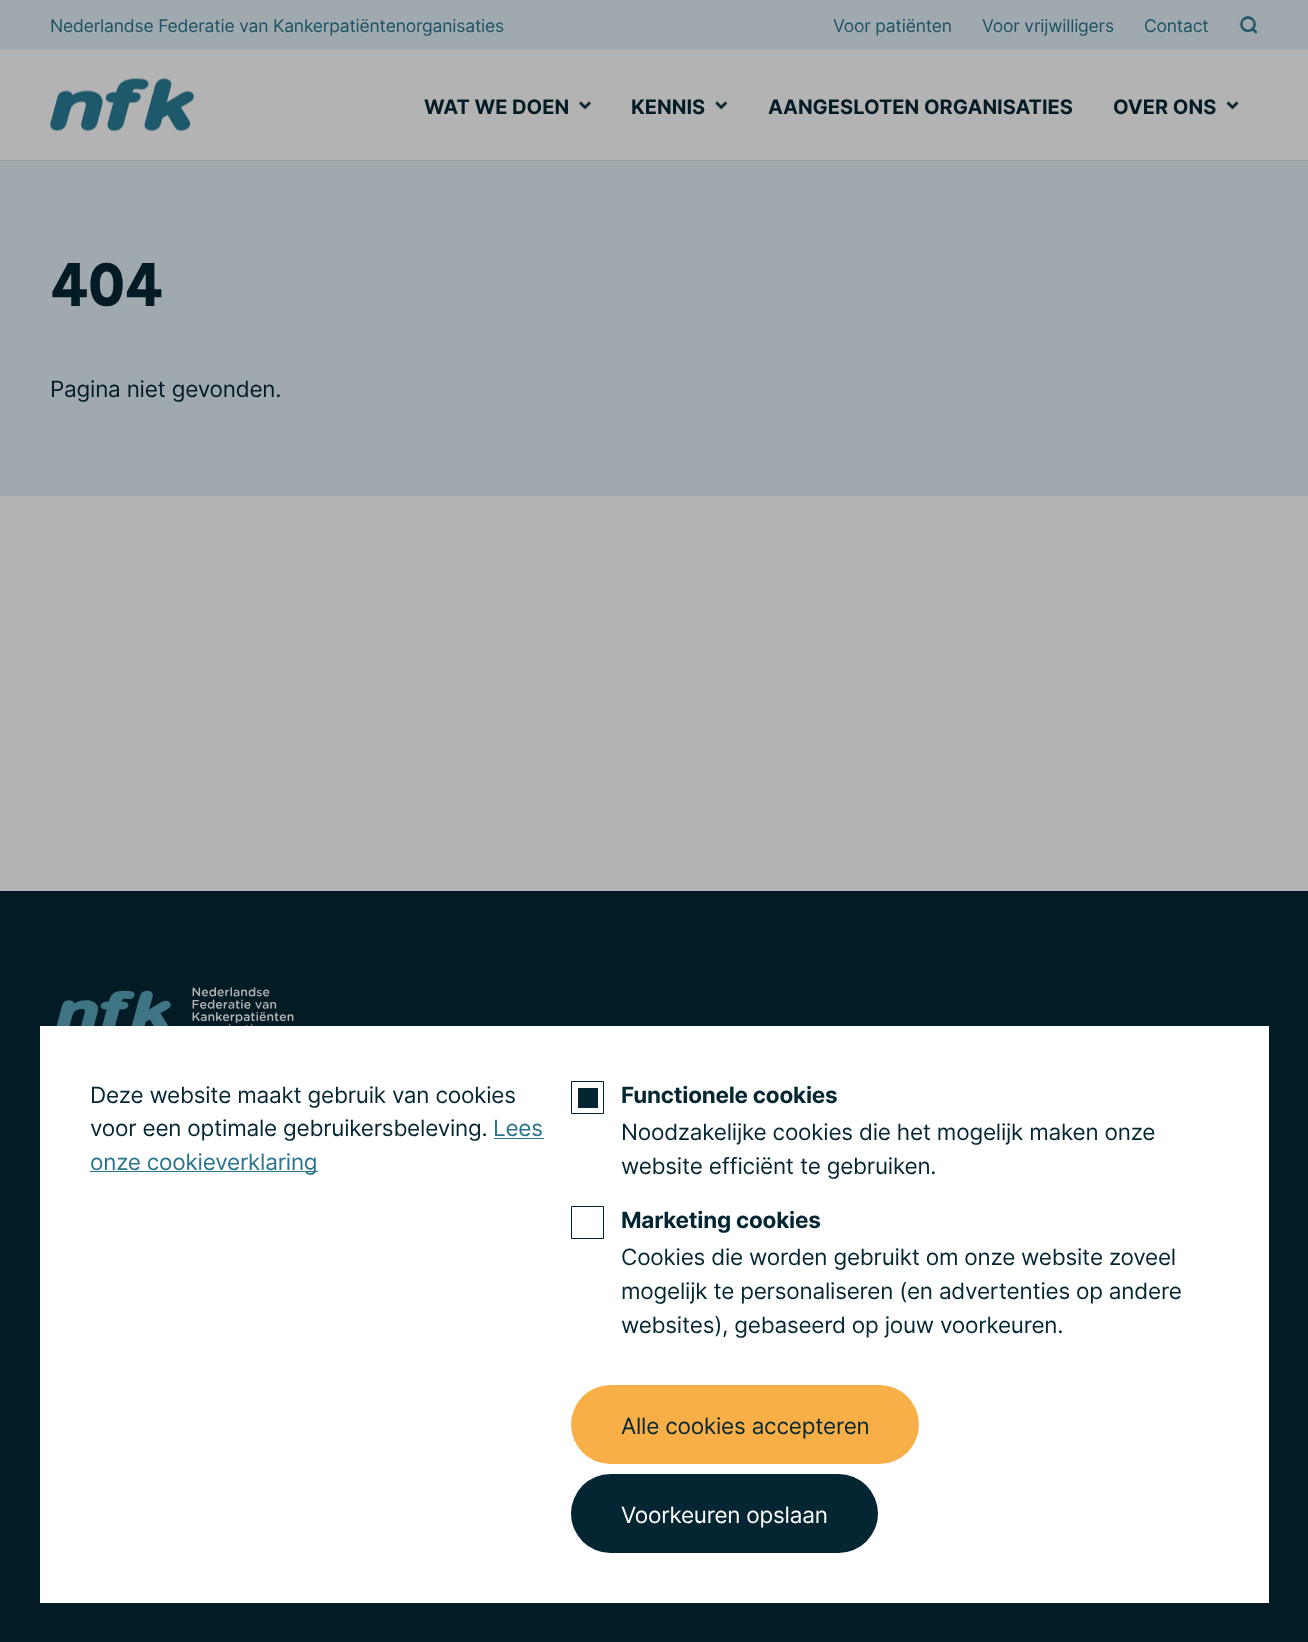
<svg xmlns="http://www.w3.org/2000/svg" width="1308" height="1642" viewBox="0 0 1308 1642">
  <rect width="100%" height="100%" fill="#b3b3b3"/>
  <path d="M0 160h1308v1H0z" fill="#979fa2"/>
  <path d="M0 0h1308v50H0z" fill="#a0aaae"/>
  <image x="1239" y="16" width="19" height="18" href="img/1.png"/>
  <image x="50" y="78" width="144" height="53" href="img/2.png"/>
  <image x="579" y="101" width="12" height="9" href="img/3.png"/>
  <image x="715" y="101" width="13" height="9" href="img/4.png"/>
  <image x="1226" y="101" width="13" height="9" href="img/5.png"/>
  <path d="M0 161h1308v335H0z" fill="#a0aaae"/>
  <path d="M0 891h1308v751H0z" fill="#031b24"/>
  <image x="56" y="987" width="238" height="39" href="img/6.png"/>
  <path d="M40 1026h1229v577H40z" fill="#fff"/>
  <path d="M494 1138h50v1H494z" fill="#28758d"/>
  <path d="M90 1171h228v1H90z" fill="#28758d"/>
  <path d="M571.5 1081.5h32v32H571.5z" fill="none" stroke="#042633"/>
  <path d="M578 1088h20v20H578z" fill="#042633"/>
  <path d="M571.5 1206.5h32v32H571.5z" fill="none" stroke="#042633"/>
  <rect x="571" y="1385" width="348" height="79" rx="39.5" fill="#f8af47"/>
  <rect x="571" y="1474" width="307" height="79" rx="39.5" fill="#042633"/>
  <g font-family="Inter" font-size="17.5" letter-spacing="-0.18" fill="#1c5263">
    <text x="50" y="32">Nederlandse Federatie van Kankerpatiëntenorganisaties</text>
    <text x="833" y="32">Voor patiënten</text>
    <text x="982" y="32">Voor vrijwilligers</text>
    <text x="1144" y="32">Contact</text>
  </g>
  <g font-family="Inter" font-size="20" font-weight="bold" fill="#031b24">
    <text x="424" y="114">WAT WE DOEN</text>
    <text x="631" y="114">KENNIS</text>
    <text x="768" y="114">AANGESLOTEN ORGANISATIES</text>
    <text x="1113" y="114">OVER ONS</text>
  </g>
  <text x="50" y="306" font-family="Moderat" font-size="67" font-weight="bold" letter-spacing="-1" fill="#031b24">404</text>
  <text x="50" y="397" font-family="Inter" font-size="22.5" letter-spacing="-0.22" fill="#031b24">Pagina niet gevonden.</text>
  <g font-family="Inter" font-size="22.5" letter-spacing="-0.22" fill="#042633">
    <text x="90" y="1103">Deze website maakt gebruik van cookies</text>
    <text x="90" y="1136">voor een optimale gebruikersbeleving.</text>
  </g>
  <g font-family="Inter" font-size="22.5" letter-spacing="-0.22" fill="#28758d">
    <text x="493" y="1136">Lees</text>
    <text x="90" y="1170">onze cookieverklaring</text>
  </g>
  <text x="621" y="1103" font-family="Inter" font-size="22.5" font-weight="bold" letter-spacing="-0.22" fill="#042633">Functionele cookies</text>
  <g font-family="Inter" font-size="22.5" letter-spacing="-0.22" fill="#042633">
    <text x="621" y="1140">Noodzakelijke cookies die het mogelijk maken onze</text>
    <text x="621" y="1174">website efficiënt te gebruiken.</text>
  </g>
  <text x="621" y="1228" font-family="Inter" font-size="22.5" font-weight="bold" letter-spacing="-0.22" fill="#042633">Marketing cookies</text>
  <g font-family="Inter" font-size="22.5" letter-spacing="-0.22" fill="#042633">
    <text x="621" y="1265">Cookies die worden gebruikt om onze website zoveel</text>
    <text x="621" y="1299">mogelijk te personaliseren (en advertenties op andere</text>
    <text x="621" y="1333">websites), gebaseerd op jouw voorkeuren.</text>
    <text x="621" y="1434">Alle cookies accepteren</text>
  </g>
  <text x="621" y="1523" font-family="Inter" font-size="22.5" letter-spacing="-0.22" fill="#fff">Voorkeuren opslaan</text>
</svg>
